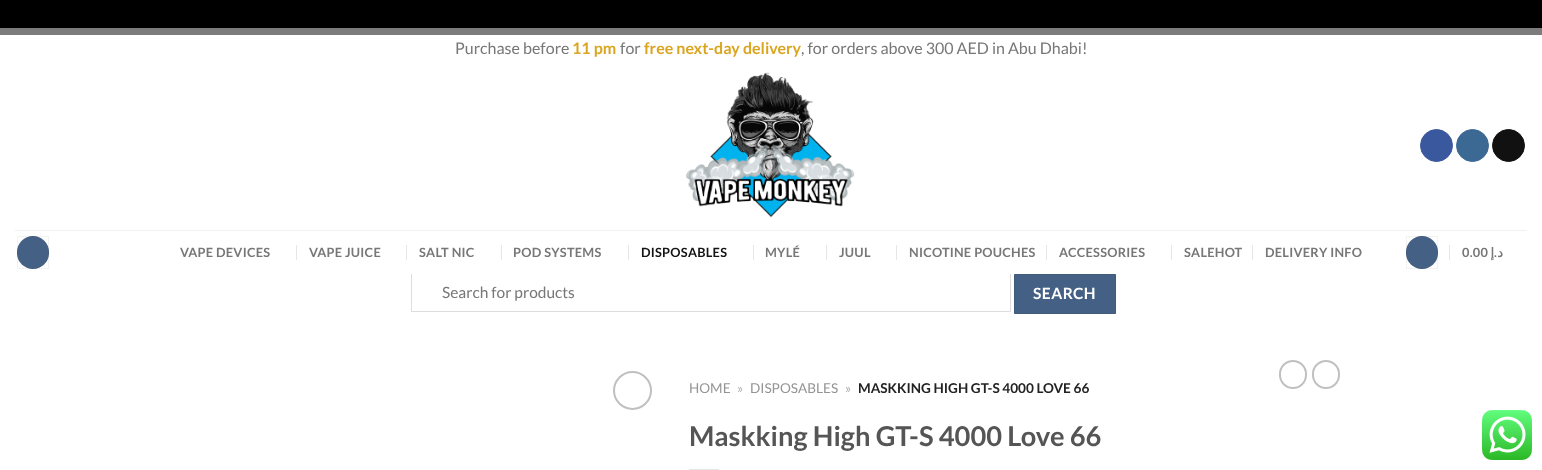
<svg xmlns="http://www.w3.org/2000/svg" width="1542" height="470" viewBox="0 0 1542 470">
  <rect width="100%" height="100%" fill="#7c7c7c"/>
  <path d="M0 0h1542v28H0z" fill="#000"/>
  <path d="M0 35h1542v435H0z" fill="#fff"/>
  <image x="686" y="72" width="169" height="146" href="img/1.png"/>
  <circle cx="1436.5" cy="145.5" r="16" fill="#3a589d" stroke="#3a589d"/>
  <circle cx="1472.5" cy="145.5" r="16" fill="#3b6994" stroke="#3b6994"/>
  <circle cx="1508.5" cy="145.5" r="16" fill="#111" stroke="#111"/>
  <path d="M15 230h1512v1H15z" fill="#f1f1f1"/>
  <path d="M411.5 272.5h599v39H411.5z" fill="none" stroke="#ddd"/>
  <path d="M411 272h600v2H411z" fill="#fff"/>
  <rect x="17" y="236" width="32" height="33" rx="16" fill="#446084"/>
  <path d="M17.5 236.5h31v32H17.5z" fill="none" stroke="#0000000d"/>
  <path d="M296 245h1v15H296z" fill="#e6e6e6"/>
  <path d="M406 245h1v15H406z" fill="#e6e6e6"/>
  <path d="M501 245h1v15H501z" fill="#e6e6e6"/>
  <path d="M628 245h1v15H628z" fill="#e6e6e6"/>
  <path d="M753 245h1v15H753z" fill="#e6e6e6"/>
  <path d="M826 245h1v15H826z" fill="#e6e6e6"/>
  <path d="M896 245h1v15H896z" fill="#e6e6e6"/>
  <path d="M1046 245h1v15H1046z" fill="#e6e6e6"/>
  <path d="M1171 245h1v15H1171z" fill="#e6e6e6"/>
  <path d="M1252 245h1v15H1252z" fill="#e6e6e6"/>
  <rect x="1406" y="236" width="32" height="33" rx="16" fill="#446084"/>
  <path d="M1406.5 236.5h31v32H1406.5z" fill="none" stroke="#0000000d"/>
  <path d="M1449 245h1v15H1449z" fill="#e6e6e6"/>
  <path d="M1014.5 274.5h101v39H1014.5z" fill="#446084" stroke="#415b7d"/>
  <circle cx="632.5" cy="390.5" r="18.5" fill="none" stroke="#c0c0c0" stroke-width="2"/>
  <path d="M689 469h30v1H689z" fill="#e6e6e6"/>
  <rect x="1280" y="361" width="26" height="27" rx="13" fill="none" stroke="#c0c0c0" stroke-width="2"/>
  <rect x="1313" y="361" width="26" height="27" rx="13" fill="none" stroke="#c0c0c0" stroke-width="2"/>
  <image x="1482" y="410" width="50" height="50" href="img/2.png"/>
  <text x="455" y="54" font-family="Lato" font-size="16" fill="#777">Purchase before</text>
  <text x="572" y="54" font-family="Lato" font-size="16" font-weight="bold" fill="#daa520">11 pm</text>
  <text x="620" y="54" font-family="Lato" font-size="16" fill="#777">for</text>
  <text x="644" y="54" font-family="Lato" font-size="16" font-weight="bold" fill="#daa520">free next-day delivery</text>
  <text x="801" y="54" font-family="Lato" font-size="16" fill="#777">, for orders above 300 AED in Abu Dhabi!</text>
  <g font-family="Lato" font-size="12.75" font-weight="bold" letter-spacing="0.25" fill="#777">
    <text x="180" y="257">VAPE DEVICES</text>
    <text x="309" y="257">VAPE JUICE</text>
    <text x="419" y="257">SALT NIC</text>
    <text x="513" y="257">POD SYSTEMS</text>
  </g>
  <text x="641" y="257" font-family="Lato" font-size="12.75" font-weight="bold" letter-spacing="0.25" fill="#141414">DISPOSABLES</text>
  <g font-family="Lato" font-size="12.75" font-weight="bold" letter-spacing="0.25" fill="#777">
    <text x="765" y="257">MYLÉ</text>
    <text x="839" y="257">JUUL</text>
    <text x="909" y="257">NICOTINE POUCHES</text>
    <text x="1059" y="257">ACCESSORIES</text>
    <text x="1184" y="257">SALEHOT</text>
    <text x="1265" y="257">DELIVERY INFO</text>
    <text x="1462" y="257">0.00</text>
  </g>
  <text x="1494" y="257" font-family="DejaVu Sans" font-size="12.75" font-weight="bold" letter-spacing="0.25" direction="rtl" fill="#777">إ</text>
  <text x="1497" y="257" font-family="Lato" font-size="12.75" font-weight="bold" letter-spacing="0.25" direction="rtl" fill="#777">.</text>
  <text x="1503" y="257" font-family="DejaVu Sans" font-size="12.75" font-weight="bold" letter-spacing="0.25" direction="rtl" fill="#777">د</text>
  <text x="442" y="298" font-family="Lato" font-size="15.5" fill="#777">Search for products</text>
  <text x="1033" y="299" font-family="Lato" font-size="15.5" font-weight="bold" letter-spacing="0.5" fill="#fff">SEARCH</text>
  <text x="689" y="393" font-family="Lato" font-size="13.6" fill="#949494">HOME</text>
  <text x="737" y="393" font-family="Lato" font-size="13.6" fill="#b2b2b2">»</text>
  <text x="750" y="393" font-family="Lato" font-size="13.6" fill="#949494">DISPOSABLES</text>
  <text x="845" y="393" font-family="Lato" font-size="13.6" fill="#b2b2b2">»</text>
  <text x="858" y="393" font-family="Lato" font-size="13.6" font-weight="bold" fill="#222">MASKKING HIGH GT-S 4000 LOVE 66</text>
  <text x="689" y="446" font-family="Lato" font-size="27.25" font-weight="bold" fill="#555">Maskking High GT-S 4000 Love 66</text>
</svg>
